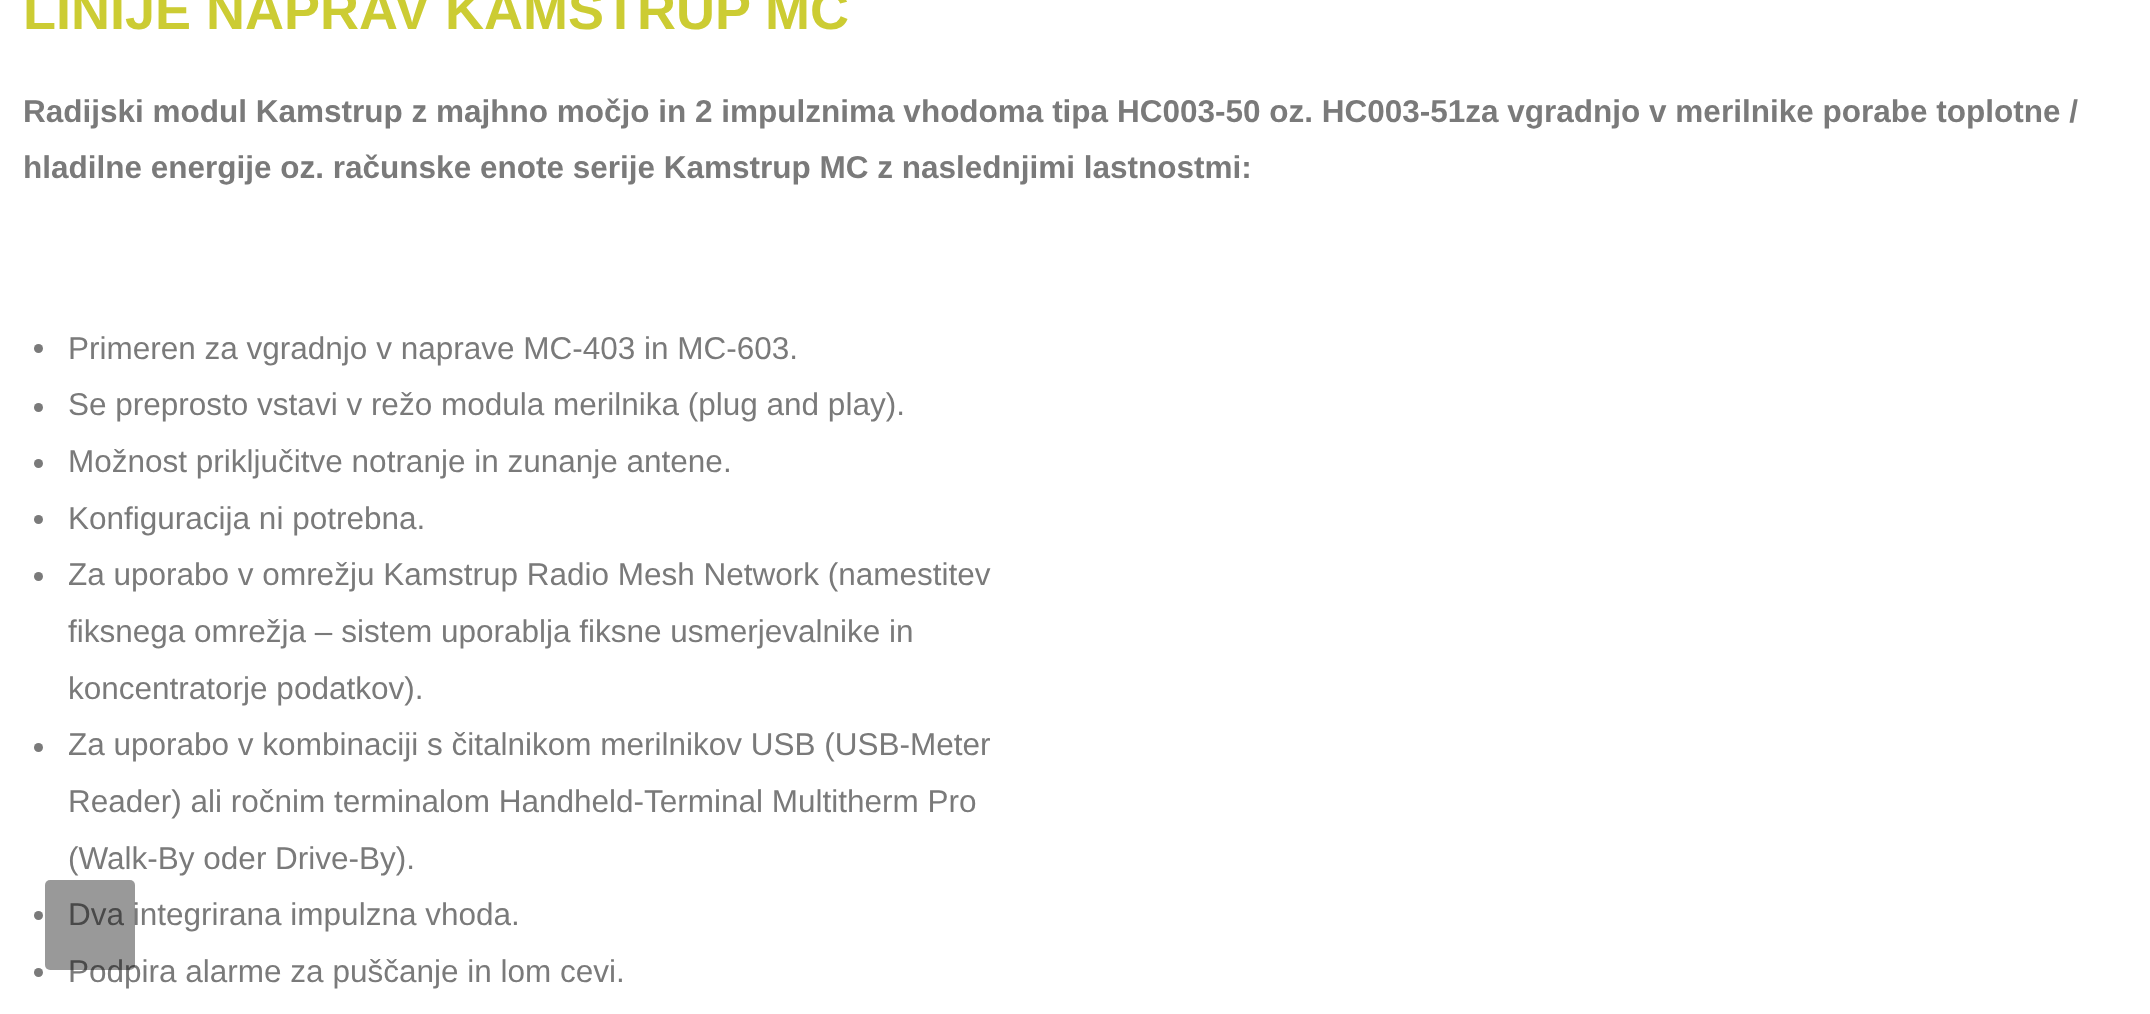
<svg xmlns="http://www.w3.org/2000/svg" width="2150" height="1014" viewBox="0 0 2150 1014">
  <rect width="100%" height="100%" fill="#fff"/>
  <circle cx="38.5" cy="348.5" r="4.5" fill="#7a7a7a"/>
  <circle cx="38.5" cy="407.5" r="4.5" fill="#7a7a7a"/>
  <circle cx="38.5" cy="463.5" r="4.5" fill="#7a7a7a"/>
  <circle cx="38.5" cy="519.5" r="4.5" fill="#7a7a7a"/>
  <circle cx="38.5" cy="576.5" r="4.5" fill="#7a7a7a"/>
  <circle cx="38.5" cy="747.5" r="4.5" fill="#7a7a7a"/>
  <circle cx="38.5" cy="915.5" r="4.5" fill="#7a7a7a"/>
  <circle cx="38.5" cy="972.5" r="4.5" fill="#7a7a7a"/>
  <text x="23" y="29" font-family="Liberation Sans" font-size="54" font-weight="bold" fill="#cc3">LINIJE NAPRAV KAMSTRUP MC</text>
  <g font-family="Liberation Sans" font-size="31.5" font-weight="bold" fill="#7a7a7a">
    <text x="23" y="122">Radijski modul Kamstrup z majhno močjo in 2 impulznima vhodoma tipa HC003-50 oz. HC003-51za vgradnjo v merilnike porabe toplotne /</text>
    <text x="23" y="178">hladilne energije oz. računske enote serije Kamstrup MC z naslednjimi lastnostmi:</text>
  </g>
  <g font-family="Liberation Sans" font-size="31.5" fill="#7a7a7a">
    <text x="68" y="359">Primeren za vgradnjo v naprave MC-403 in MC-603.</text>
    <text x="68" y="415">Se preprosto vstavi v režo modula merilnika (plug and play).</text>
    <text x="68" y="472">Možnost priključitve notranje in zunanje antene.</text>
    <text x="68" y="529">Konfiguracija ni potrebna.</text>
    <text x="68" y="585">Za uporabo v omrežju Kamstrup Radio Mesh Network (namestitev</text>
    <text x="68" y="642">fiksnega omrežja – sistem uporablja fiksne usmerjevalnike in</text>
    <text x="68" y="699">koncentratorje podatkov).</text>
    <text x="68" y="755">Za uporabo v kombinaciji s čitalnikom merilnikov USB (USB-Meter</text>
    <text x="68" y="812">Reader) ali ročnim terminalom Handheld-Terminal Multitherm Pro</text>
    <text x="68" y="869">(Walk-By oder Drive-By).</text>
    <text x="68" y="925">Dva integrirana impulzna vhoda.</text>
    <text x="68" y="982">Podpira alarme za puščanje in lom cevi.</text>
  </g>
  <rect x="45" y="880" width="90" height="90" rx="5" fill="#00000066"/>
</svg>
